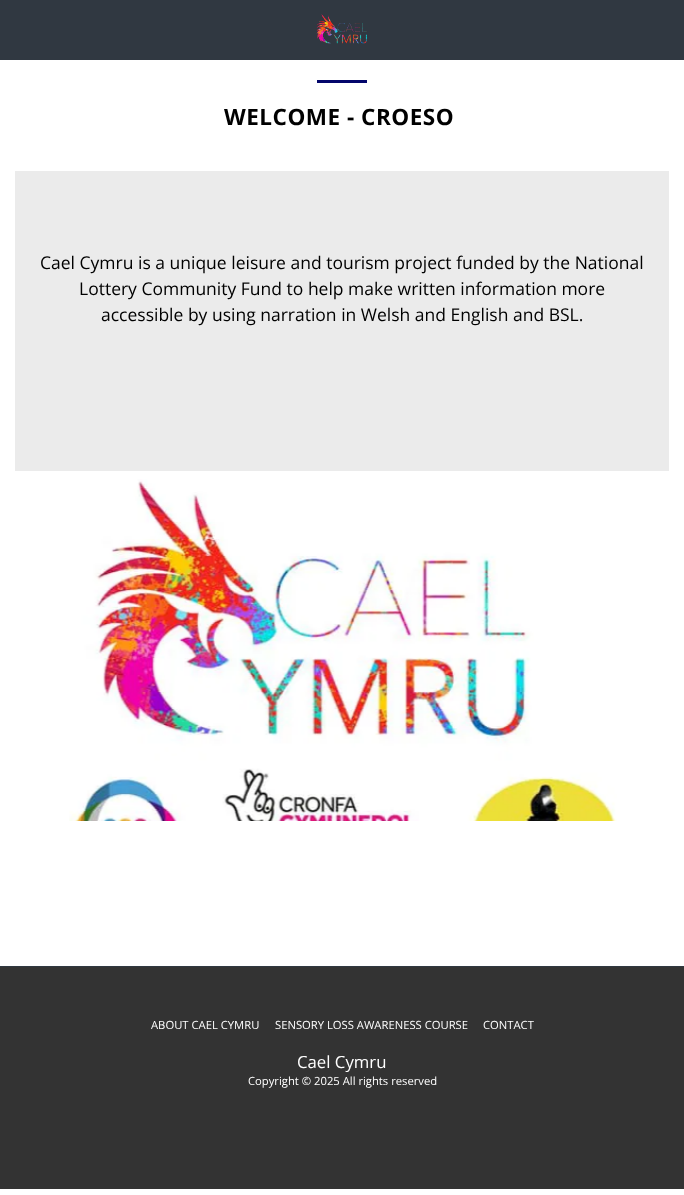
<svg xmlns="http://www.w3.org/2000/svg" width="684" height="1195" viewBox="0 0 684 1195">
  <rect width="100%" height="100%" fill="#fff"/>
  <path d="M0 0h684v60H0z" fill="#303841"/>
  <image x="316" y="14" width="51" height="30" href="img/1.png"/>
  <path d="M317 80h50v3H317z" fill="#03066b"/>
  <path d="M15 171h654v300H15z" fill="#ebebeb"/>
  <image x="69" y="479" width="548" height="342" href="img/2.png"/>
  <path d="M0 967h684v222H0z" fill="#333"/>
  <path d="M0 966h684v1H0z" fill="#303841"/>
  <text x="224" y="125" font-family="Open Sans" font-size="22.5" font-weight="bold" letter-spacing="0.5" fill="#000">WELCOME - CROESO</text>
  <g font-family="Open Sans" font-size="17.5" fill="#000">
    <text x="40" y="269">Cael Cymru is a unique leisure and tourism project funded by the National</text>
    <text x="79" y="295">Lottery Community Fund to help make written information more</text>
    <text x="101" y="321">accessible by using narration in Welsh and English and BSL.</text>
  </g>
  <g font-family="Open Sans" font-size="11.25" fill="#fff">
    <text x="151" y="1029">ABOUT CAEL CYMRU</text>
    <text x="275" y="1029">SENSORY LOSS AWARENESS COURSE</text>
    <text x="483" y="1029">CONTACT</text>
  </g>
  <text x="297" y="1068" font-family="Open Sans" font-size="16.75" fill="#fff">Cael Cymru</text>
  <text x="248" y="1085" font-family="Open Sans" font-size="11.25" fill="#fff">Copyright © 2025 All rights reserved</text>
</svg>
